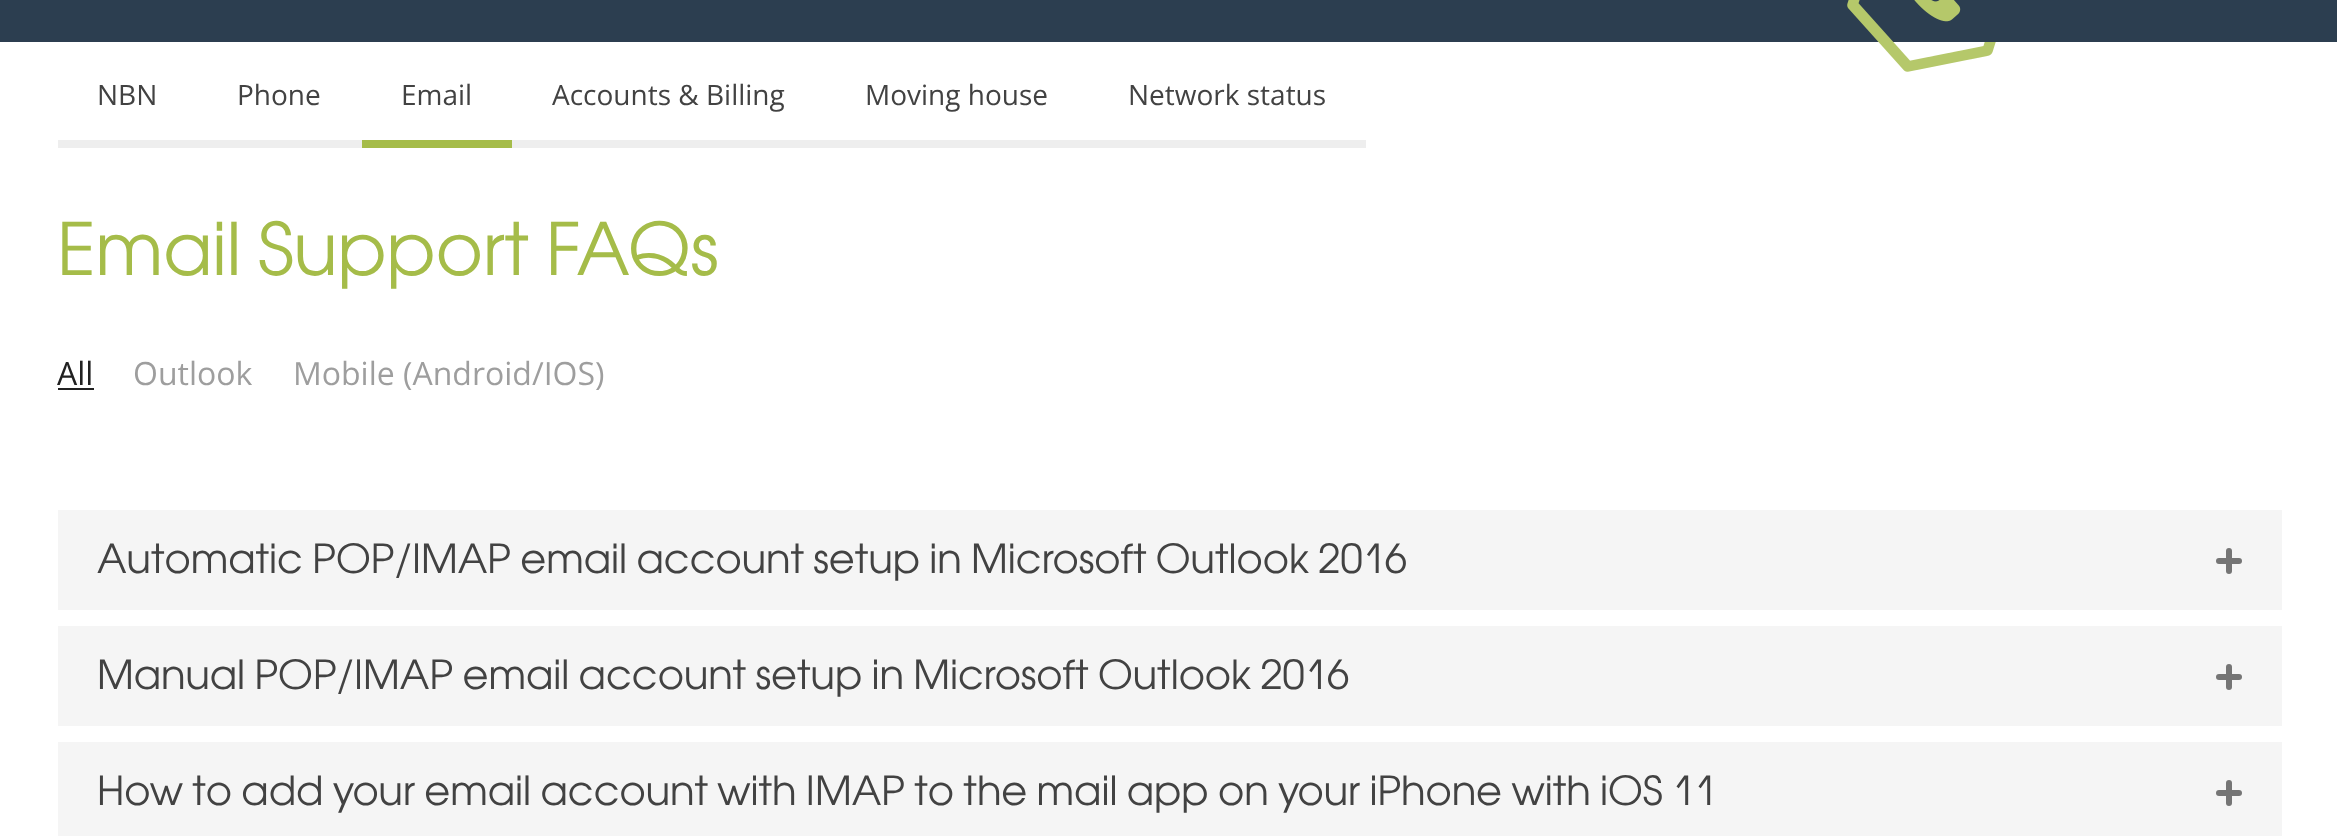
<svg xmlns="http://www.w3.org/2000/svg" width="2337" height="836" viewBox="0 0 2337 836">
  <rect width="100%" height="100%" fill="#fff"/>
  <path d="M0 0h2337v42H0z" fill="#2c3e50"/>
  <image x="1847" y="0" width="149" height="72" href="img/1.png"/>
  <path d="M58 140h304v8H58z" fill="#eee"/>
  <path d="M362 140h150v8H362z" fill="#a5bc49"/>
  <path d="M512 140h854v8H512z" fill="#eee"/>
  <path d="M58 388h36v2H58z" fill="#212121"/>
  <path d="M58 510h2224v100H58z" fill="#f5f5f5"/>
  <rect x="2226" y="548" width="6" height="26" rx="3" fill="#757575"/>
  <rect x="2216" y="558" width="26" height="6" rx="3" fill="#757575"/>
  <path d="M58 626h2224v100H58z" fill="#f5f5f5"/>
  <rect x="2226" y="664" width="6" height="26" rx="3" fill="#757575"/>
  <rect x="2216" y="674" width="26" height="6" rx="3" fill="#757575"/>
  <path d="M58 742h2224v94H58z" fill="#f5f5f5"/>
  <rect x="2226" y="780" width="6" height="26" rx="3" fill="#757575"/>
  <rect x="2216" y="790" width="26" height="6" rx="3" fill="#757575"/>
  <g font-family="Open Sans" font-size="28" fill="#424242">
    <text x="97" y="105">NBN</text>
    <text x="237" y="105">Phone</text>
    <text x="401" y="105">Email</text>
    <text x="552" y="105">Accounts &amp; Billing</text>
    <text x="865" y="105">Moving house</text>
    <text x="1128" y="105">Network status</text>
  </g>
  <text x="57" y="275" font-family="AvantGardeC" font-size="72" fill="#a5bc49">Email Support FAQs</text>
  <text x="57" y="385" font-family="Open Sans" font-size="32" fill="#212121">All</text>
  <g font-family="Open Sans" font-size="32" fill="#9e9e9e">
    <text x="133" y="385">Outlook</text>
    <text x="293" y="385">Mobile (Android/IOS)</text>
  </g>
  <g font-family="AvantGardeC" font-size="40" fill="#424242">
    <text x="97" y="573">Automatic POP/IMAP email account setup in Microsoft Outlook 2016</text>
    <text x="97" y="689">Manual POP/IMAP email account setup in Microsoft Outlook 2016</text>
    <text x="97" y="805">How to add your email account with IMAP to the mail app on your iPhone with iOS 11</text>
  </g>
</svg>
